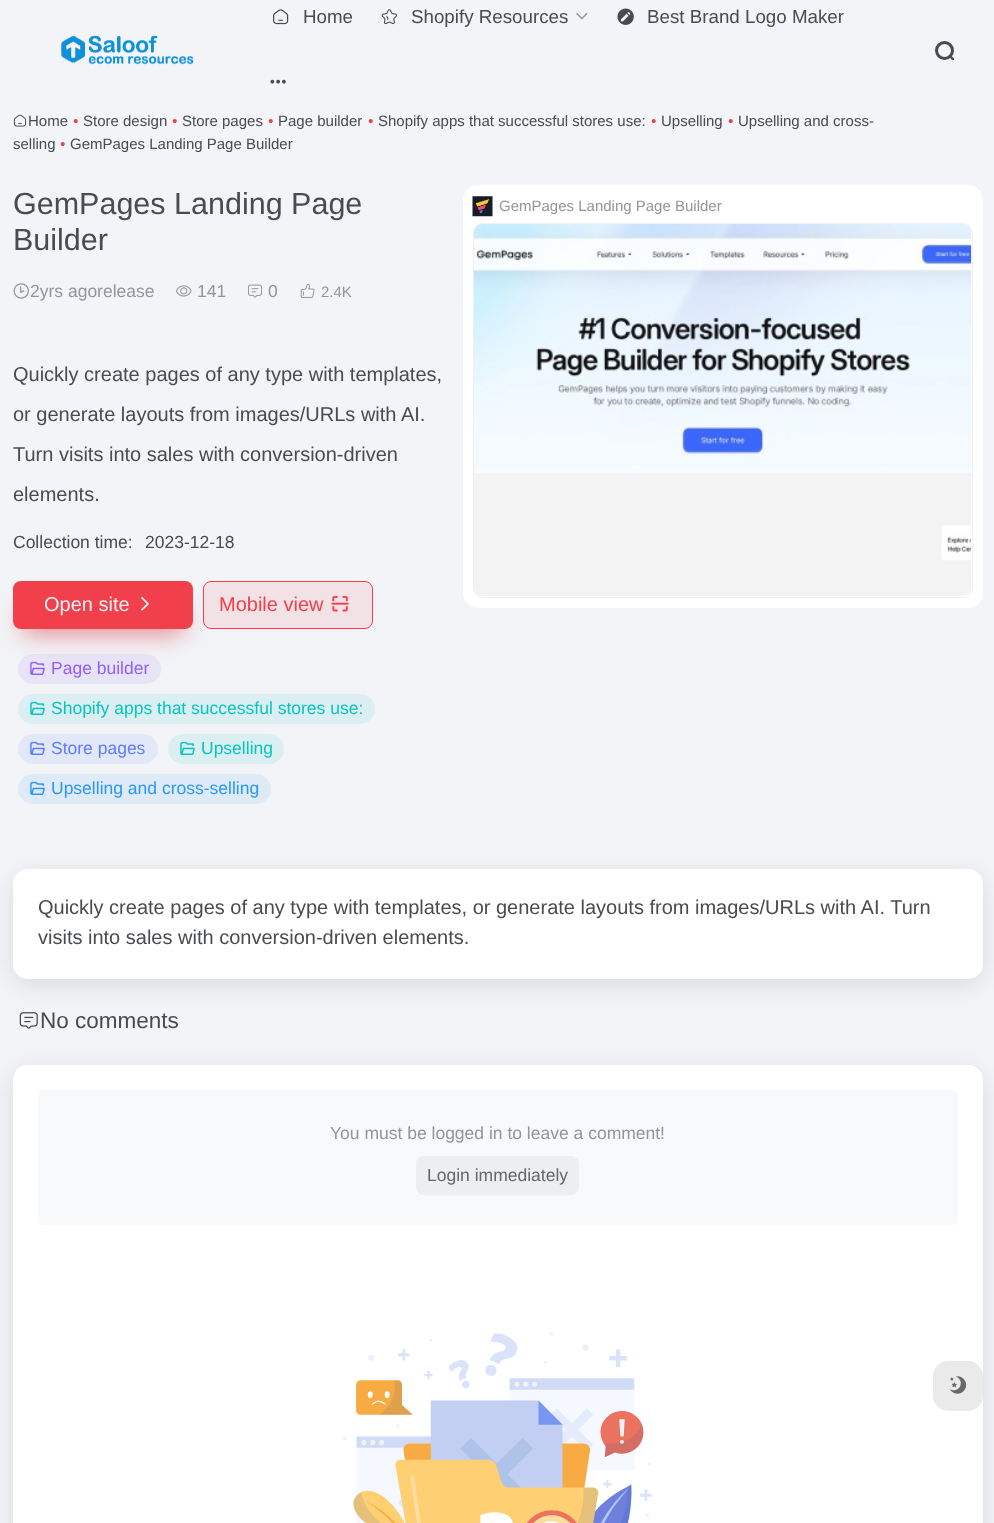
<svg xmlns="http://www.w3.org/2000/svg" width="994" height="1523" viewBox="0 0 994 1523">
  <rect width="100%" height="100%" fill="#f2f4f7"/>
  <image x="273" y="9" width="16" height="16" href="img/1.png"/>
  <image x="381" y="9" width="17" height="16" href="img/2.png"/>
  <image x="576" y="13" width="12" height="7" href="img/3.png"/>
  <image x="617" y="8" width="17" height="17" href="img/4.png"/>
  <image x="270" y="79" width="16" height="5" href="img/5.png"/>
  <image x="61" y="35" width="133" height="34" href="img/6.png"/>
  <circle cx="944.5" cy="50.5" r="8" fill="none" stroke="#484b4f" stroke-width="3"/>
  <path d="M952 56.5L954 58.5C954.5 60.5 952.5 60.5 951.5 59.5L950 57.5C949.5 56.5 951 55.5 952 56.5Z" fill="#484b4f"/>
  <image x="13" y="114" width="14" height="13" href="img/7.png"/>
  <image x="13" y="283" width="16" height="16" href="img/8.png"/>
  <image x="176" y="285" width="16" height="12" href="img/9.png"/>
  <image x="248" y="284" width="14" height="14" href="img/10.png"/>
  <image x="300" y="283" width="15" height="15" href="img/11.png"/>
  <path d="M23 606h160v28H23z" fill="#dc414b99" filter="blur(12.5px)"/>
  <rect x="13" y="581" width="180" height="48" rx="8" fill="#f1404b"/>
  <image x="141" y="597" width="8" height="14" href="img/12.png"/>
  <rect x="203.5" y="581.5" width="169" height="47" rx="7.5" fill="#f1404b1a" stroke="#f1404b"/>
  <image x="331" y="596" width="18" height="16" href="img/13.png"/>
  <rect x="18" y="654" width="143" height="30" rx="15" fill="#955cff1a"/>
  <image x="30" y="661" width="15" height="14" href="img/14.png"/>
  <rect x="18" y="694" width="357" height="30" rx="15" fill="#dbeff2"/>
  <image x="30" y="701" width="15" height="14" href="img/15.png"/>
  <rect x="18" y="734" width="140" height="30" rx="15" fill="#e3e8f8"/>
  <image x="30" y="741" width="15" height="14" href="img/16.png"/>
  <rect x="168" y="734" width="116" height="30" rx="15" fill="#dbeff2"/>
  <image x="180" y="741" width="15" height="14" href="img/15.png"/>
  <rect x="18" y="774" width="253" height="30" rx="15" fill="#deebf7"/>
  <image x="30" y="781" width="15" height="14" href="img/17.png"/>
  <rect x="463" y="185" width="520" height="423" rx="15" fill="#fff"/>
  <image x="472" y="196" width="21" height="21" href="img/18.png"/>
  <rect x="473.5" y="223.5" width="499" height="374" rx="9.5" fill="none" stroke="#f1f1f1"/>
  <image x="473" y="224" width="499" height="372" href="img/19.png"/>
  <image x="19" y="1012" width="19" height="17" href="img/20.png"/>
  <rect x="13" y="875" width="970" height="110" rx="15" fill="#0000001a" filter="blur(12.5px)"/>
  <rect x="13" y="869" width="970" height="110" rx="15" fill="#fff"/>
  <rect x="13" y="1071" width="970" height="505" rx="15" fill="#0000001a" filter="blur(12.5px)"/>
  <rect x="13" y="1065" width="970" height="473" rx="15" fill="#fff"/>
  <rect x="38" y="1090" width="920" height="135" rx="5" fill="#f8f9fa"/>
  <rect x="416" y="1156" width="163" height="39" rx="8" fill="#edeeef"/>
  <image x="343" y="1332" width="309" height="191" href="img/21.png"/>
  <rect x="933" y="1361" width="50" height="50" rx="15" fill="#eaeaea"/>
  <image x="949" y="1376" width="18" height="18" href="img/22.png"/>
  <g font-family="Liberation Sans" font-size="18.75" fill="#484b4f">
    <text x="303" y="23">Home</text>
    <text x="411" y="23">Shopify Resources</text>
    <text x="647" y="23">Best Brand Logo Maker</text>
  </g>
  <text x="28" y="126" font-family="Liberation Sans" font-size="15" fill="#484b4f">Home</text>
  <text x="73" y="126" font-family="Liberation Sans" font-size="15" font-style="italic" fill="#f1404b">•</text>
  <text x="83" y="126" font-family="Liberation Sans" font-size="15" fill="#484b4f">Store design</text>
  <text x="172" y="126" font-family="Liberation Sans" font-size="15" font-style="italic" fill="#f1404b">•</text>
  <text x="182" y="126" font-family="Liberation Sans" font-size="15" fill="#484b4f">Store pages</text>
  <text x="268" y="126" font-family="Liberation Sans" font-size="15" font-style="italic" fill="#f1404b">•</text>
  <text x="278" y="126" font-family="Liberation Sans" font-size="15" fill="#484b4f">Page builder</text>
  <text x="368" y="126" font-family="Liberation Sans" font-size="15" font-style="italic" fill="#f1404b">•</text>
  <text x="378" y="126" font-family="Liberation Sans" font-size="15" fill="#484b4f">Shopify apps that successful stores use:</text>
  <text x="651" y="126" font-family="Liberation Sans" font-size="15" font-style="italic" fill="#f1404b">•</text>
  <text x="661" y="126" font-family="Liberation Sans" font-size="15" fill="#484b4f">Upselling</text>
  <text x="728" y="126" font-family="Liberation Sans" font-size="15" font-style="italic" fill="#f1404b">•</text>
  <g font-family="Liberation Sans" font-size="15" fill="#484b4f">
    <text x="738" y="126">Upselling and cross-</text>
    <text x="13" y="149">selling</text>
  </g>
  <text x="60" y="149" font-family="Liberation Sans" font-size="15" font-style="italic" fill="#f1404b">•</text>
  <text x="70" y="149" font-family="Liberation Sans" font-size="15" fill="#484b4f">GemPages Landing Page Builder</text>
  <g font-family="Liberation Sans" font-size="30.5" fill="#484b4f">
    <text x="13" y="214">GemPages Landing Page</text>
    <text x="13" y="250">Builder</text>
  </g>
  <g font-family="Liberation Sans" font-size="17.5" fill="#93959a">
    <text x="30" y="297">2yrs agorelease</text>
    <text x="197" y="297">141</text>
    <text x="268" y="297">0</text>
  </g>
  <text x="321" y="297" font-family="Liberation Sans" font-size="15" fill="#93959a">2.4K</text>
  <g font-family="Liberation Sans" font-size="20" fill="#484b4f">
    <text x="13" y="381">Quickly create pages of any type with templates,</text>
    <text x="13" y="421">or generate layouts from images/URLs with AI.</text>
    <text x="13" y="461">Turn visits into sales with conversion-driven</text>
    <text x="13" y="501">elements.</text>
  </g>
  <g font-family="Liberation Sans" font-size="17.5" fill="#484b4f">
    <text x="13" y="548">Collection time:</text>
    <text x="145" y="548">2023-12-18</text>
  </g>
  <text x="44" y="611" font-family="Liberation Sans" font-size="20" fill="#f1f2f3">Open site</text>
  <text x="219" y="611" font-family="Liberation Sans" font-size="20" fill="#f1404b">Mobile view</text>
  <text x="51" y="674" font-family="Liberation Sans" font-size="17.5" fill="#955cff">Page builder</text>
  <text x="51" y="714" font-family="Liberation Sans" font-size="17.5" fill="#08c4c1">Shopify apps that successful stores use:</text>
  <text x="51" y="754" font-family="Liberation Sans" font-size="17.5" fill="#5c7cff">Store pages</text>
  <text x="201" y="754" font-family="Liberation Sans" font-size="17.5" fill="#08c4c1">Upselling</text>
  <text x="51" y="794" font-family="Liberation Sans" font-size="17.5" fill="#2997f7">Upselling and cross-selling</text>
  <text x="499" y="211" font-family="Liberation Sans" font-size="15" fill="#93959a">GemPages Landing Page Builder</text>
  <g font-family="Liberation Sans" font-size="20" fill="#484b4f">
    <text x="38" y="914">Quickly create pages of any type with templates, or generate layouts from images/URLs with AI. Turn</text>
    <text x="38" y="944">visits into sales with conversion-driven elements.</text>
  </g>
  <text x="40" y="1028" font-family="Liberation Sans" font-size="22.5" fill="#484b4f">No comments</text>
  <text x="330" y="1139" font-family="Liberation Sans" font-size="17.5" fill="#93959a">You must be logged in to leave a comment!</text>
  <text x="427" y="1181" font-family="Liberation Sans" font-size="17.5" fill="#666">Login immediately</text>
</svg>
